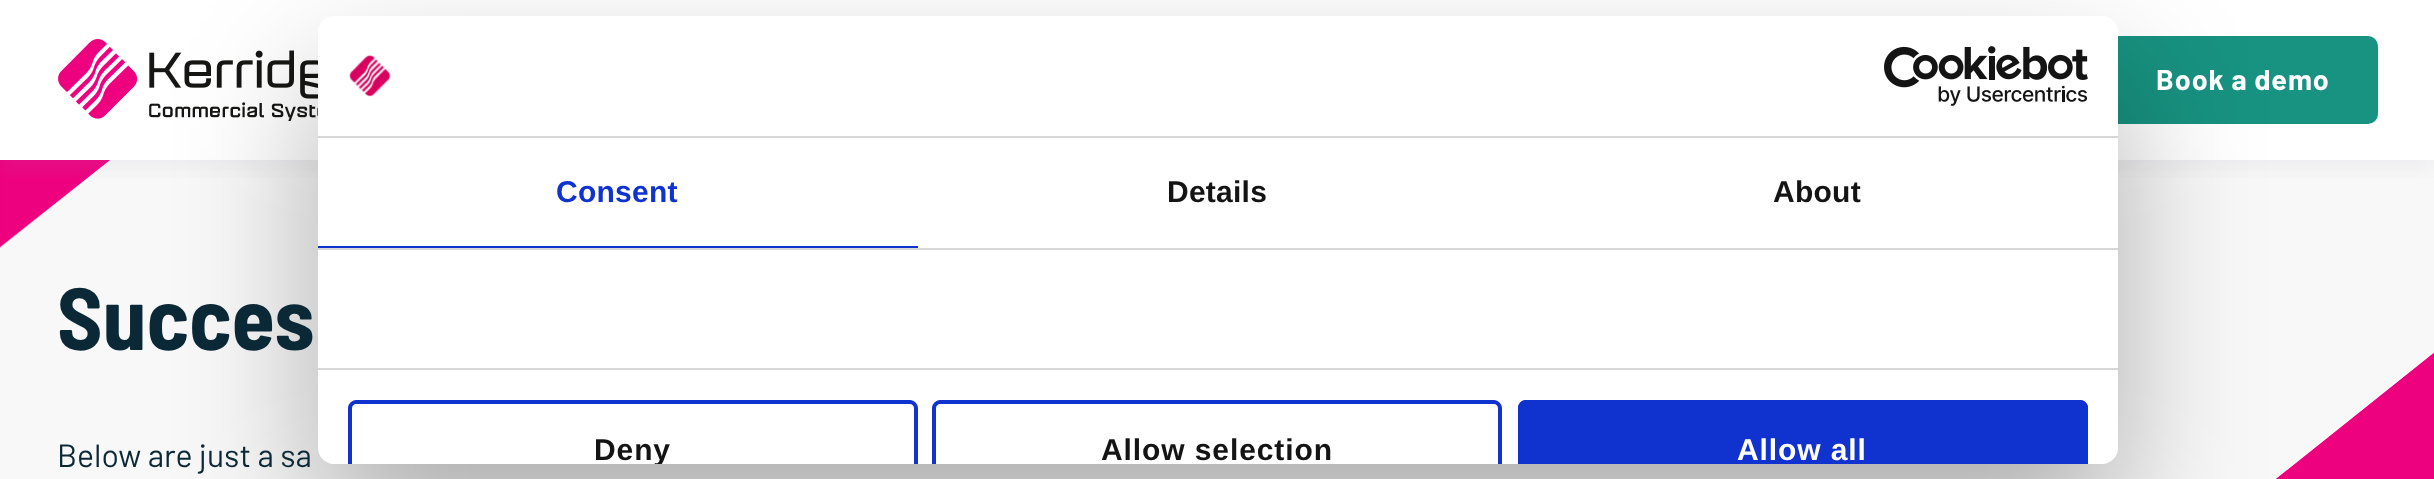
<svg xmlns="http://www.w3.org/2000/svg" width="2434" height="479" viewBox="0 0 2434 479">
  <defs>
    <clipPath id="clip1"><path d="M0 160h110v88H0z"/></clipPath>
    <clipPath id="clip2"><path d="M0 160h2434v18H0z"/></clipPath>
    <clipPath id="clip3"><rect x="318" y="16" width="1800" height="448" rx="16"/></clipPath>
  </defs>
  <rect width="100%" height="100%" fill="#fff"/>
  <path d="M0 160h2434v319H0z" fill="#f8f8f8"/>
  <path d="M110 160H0V247Z" fill="#ed017f"/>
  <g clip-path="url(#clip1)">
    <path d="M109.5 160H0V247.5Z" fill="none" stroke="#ed017f" stroke-width="0.3"/>
  </g>
  <g clip-path="url(#clip2)">
    <path d="M0 10h2434v160H0z" fill="#9aa1b11a" filter="blur(10px)"/>
  </g>
  <image x="58" y="39" width="260" height="82" href="img/1.png"/>
  <rect x="2108" y="36" width="270" height="88" rx="10" fill="#189281"/>
  <path d="M1996 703H2433V354Z" fill="#ed017f"/>
  <path d="M1995.5 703.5H2433.5V354Z" fill="none" stroke="#ed017f" stroke-width="1.2"/>
  <rect x="318" y="80" width="1800" height="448" rx="16" fill="#0000004d" filter="blur(68px)"/>
  <rect x="318" y="16" width="1800" height="448" rx="16" fill="#fff"/>
  <path d="M318 136h1800v2H318z" fill="#d6d6d6"/>
  <image x="349" y="54" width="42" height="43" href="img/2.png"/>
  <image x="1884" y="46" width="204" height="60" href="img/3.png"/>
  <path d="M318 248h1800v2H318z" fill="#d6d6d6"/>
  <path d="M318 246h600v2H318z" fill="#1032cf"/>
  <path d="M318 368h1800v2H318z" fill="#d6d6d6"/>
  <path d="M356 400C352 400 348 404 348 408V464H352V408C352 406 354 404 356 404H910C912 404 914 406 914 408V464H918V408C918 404 914 400 910 400Z" fill="#1032cf"/>
  <path d="M940 400C936 400 932 404 932 408V464H936V408C936 406 938 404 940 404H1494C1496 404 1498 406 1498 408V464H1502V408C1502 404 1498 400 1494 400Z" fill="#1032cf"/>
  <path d="M1526 400H2080C2084.5 400 2088 403.5 2088 408V464H1518V408C1518 403.5 1521.5 400 1526 400Z" fill="#1032cf"/>
  <path d="M1526 400C1522 400 1518 404 1518 408V464H1522V408C1522 406 1524 404 1526 404H2080C2082 404 2084 406 2084 408V464H2088V408C2088 404 2084 400 2080 400Z" fill="#1032cf"/>
  <text x="2156" y="90" font-family="Barlow" font-size="28.75" font-weight="bold" letter-spacing="0.9" fill="#fff">Book a demo</text>
  <text x="57" y="350" font-family="Barlow Semi Condensed" font-size="88" font-weight="bold" fill="#0b2836">Succes</text>
  <text x="57" y="467" font-family="Barlow" font-size="32" fill="#0b2836">Below are just a sa</text>
  <text x="556" y="202" font-family="Liberation Sans" font-size="30" font-weight="bold" letter-spacing="0.25" fill="#1032cf">Consent</text>
  <g font-family="Liberation Sans" font-size="30" font-weight="bold" letter-spacing="0.25" fill="#141414">
    <text x="1167" y="202">Details</text>
    <text x="1773" y="202">About</text>
  </g>
  <g clip-path="url(#clip3)">
    <text x="594" y="460" font-family="Liberation Sans" font-size="30" font-weight="bold" letter-spacing="0.9" fill="#141414">Deny</text>
  </g>
  <text x="1101" y="460" font-family="Liberation Sans" font-size="30" font-weight="bold" letter-spacing="0.9" fill="#141414">Allow selection</text>
  <text x="1737" y="460" font-family="Liberation Sans" font-size="30" font-weight="bold" letter-spacing="0.9" fill="#fff">Allow all</text>
</svg>
